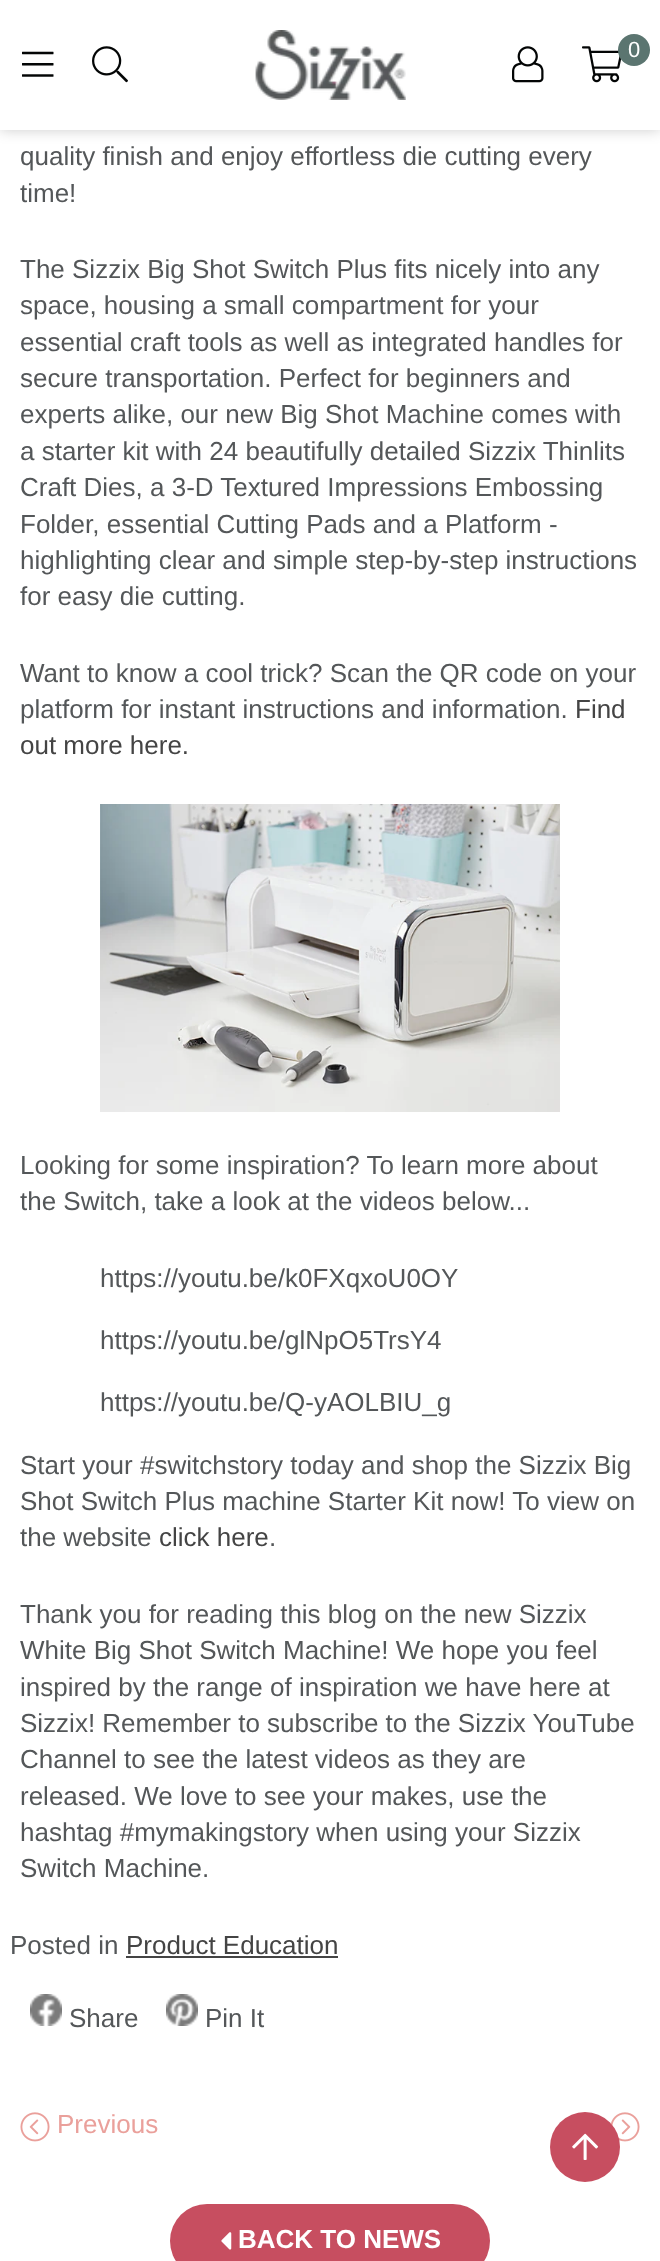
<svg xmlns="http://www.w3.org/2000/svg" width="660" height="2261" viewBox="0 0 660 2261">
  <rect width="100%" height="100%" fill="#fff"/>
  <path d="M0 0h660v130H0z" fill="#00000033" filter="blur(7px)"/>
  <path d="M0 0h660v130H0z" fill="#fff"/>
  <image x="22" y="51" width="32" height="26" href="img/1.png"/>
  <image x="92" y="46" width="36" height="37" href="img/2.png"/>
  <image x="255" y="30" width="151" height="70" href="img/3.png"/>
  <image x="512" y="46" width="32" height="37" href="img/4.png"/>
  <image x="582" y="46" width="40" height="37" href="img/5.png"/>
  <circle cx="634" cy="50" r="16" fill="#5b7570"/>
  <image x="100" y="804" width="460" height="308" href="img/6.png"/>
  <path d="M126 1956h212v2H126z" fill="#444"/>
  <image x="30" y="1994" width="32" height="32" href="img/7.png"/>
  <image x="166" y="1994" width="32" height="32" href="img/8.png"/>
  <image x="20" y="2112" width="30" height="30" href="img/9.png"/>
  <image x="610" y="2112" width="30" height="30" href="img/10.png"/>
  <rect x="170" y="2204" width="320" height="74" rx="37" fill="#c74e60"/>
  <image x="221" y="2232" width="11" height="18" href="img/11.png"/>
  <circle cx="585" cy="2147" r="35" fill="#c74e60"/>
  <image x="572" y="2133" width="27" height="27" href="img/12.png"/>
  <text x="628" y="57" font-family="Liberation Sans" font-size="22" fill="#fff">0</text>
  <g font-family="Liberation Sans" font-size="26" fill="#545759">
    <text x="20" y="165">quality finish and enjoy effortless die cutting every</text>
    <text x="20" y="202">time!</text>
    <text x="20" y="278">The Sizzix Big Shot Switch Plus fits nicely into any</text>
    <text x="20" y="314">space, housing a small compartment for your</text>
    <text x="20" y="351">essential craft tools as well as integrated handles for</text>
    <text x="20" y="387">secure transportation. Perfect for beginners and</text>
    <text x="20" y="423">experts alike, our new Big Shot Machine comes with</text>
    <text x="20" y="460">a starter kit with 24 beautifully detailed Sizzix Thinlits</text>
    <text x="20" y="496">Craft Dies, a 3-D Textured Impressions Embossing</text>
    <text x="20" y="533">Folder, essential Cutting Pads and a Platform -</text>
    <text x="20" y="569">highlighting clear and simple step-by-step instructions</text>
    <text x="20" y="605">for easy die cutting.</text>
    <text x="20" y="682">Want to know a cool trick? Scan the QR code on your</text>
    <text x="20" y="718">platform for instant instructions and information.</text>
  </g>
  <g font-family="Liberation Sans" font-size="26" fill="#444">
    <text x="575" y="718">Find</text>
    <text x="20" y="754">out more here.</text>
  </g>
  <g font-family="Liberation Sans" font-size="26" fill="#545759">
    <text x="20" y="1174">Looking for some inspiration? To learn more about</text>
    <text x="20" y="1210">the Switch, take a look at the videos below...</text>
    <text x="100" y="1287">https://youtu.be/k0FXqxoU0OY</text>
    <text x="100" y="1349">https://youtu.be/glNpO5TrsY4</text>
    <text x="100" y="1411">https://youtu.be/Q-yAOLBIU_g</text>
    <text x="20" y="1474">Start your #switchstory today and shop the Sizzix Big</text>
    <text x="20" y="1510">Shot Switch Plus machine Starter Kit now! To view on</text>
    <text x="20" y="1546">the website</text>
  </g>
  <text x="159" y="1546" font-family="Liberation Sans" font-size="26" fill="#444">click here</text>
  <g font-family="Liberation Sans" font-size="26" fill="#545759">
    <text x="269" y="1546">.</text>
    <text x="20" y="1623">Thank you for reading this blog on the new Sizzix</text>
    <text x="20" y="1659">White Big Shot Switch Machine! We hope you feel</text>
    <text x="20" y="1696">inspired by the range of inspiration we have here at</text>
    <text x="20" y="1732">Sizzix! Remember to subscribe to the Sizzix YouTube</text>
    <text x="20" y="1768">Channel to see the latest videos as they are</text>
    <text x="20" y="1805">released. We love to see your makes, use the</text>
    <text x="20" y="1841">hashtag #mymakingstory when using your Sizzix</text>
    <text x="20" y="1877">Switch Machine.</text>
    <text x="10" y="1954">Posted in</text>
  </g>
  <text x="126" y="1954" font-family="Liberation Sans" font-size="26" fill="#444">Product Education</text>
  <g font-family="Liberation Sans" font-size="26" fill="#545759">
    <text x="69" y="2027">Share</text>
    <text x="205" y="2027">Pin It</text>
  </g>
  <text x="57" y="2133" font-family="Liberation Sans" font-size="26" fill="#eaa09b">Previous</text>
  <text x="238" y="2248" font-family="Liberation Sans" font-size="26" font-weight="bold" fill="#fff">BACK TO NEWS</text>
</svg>
